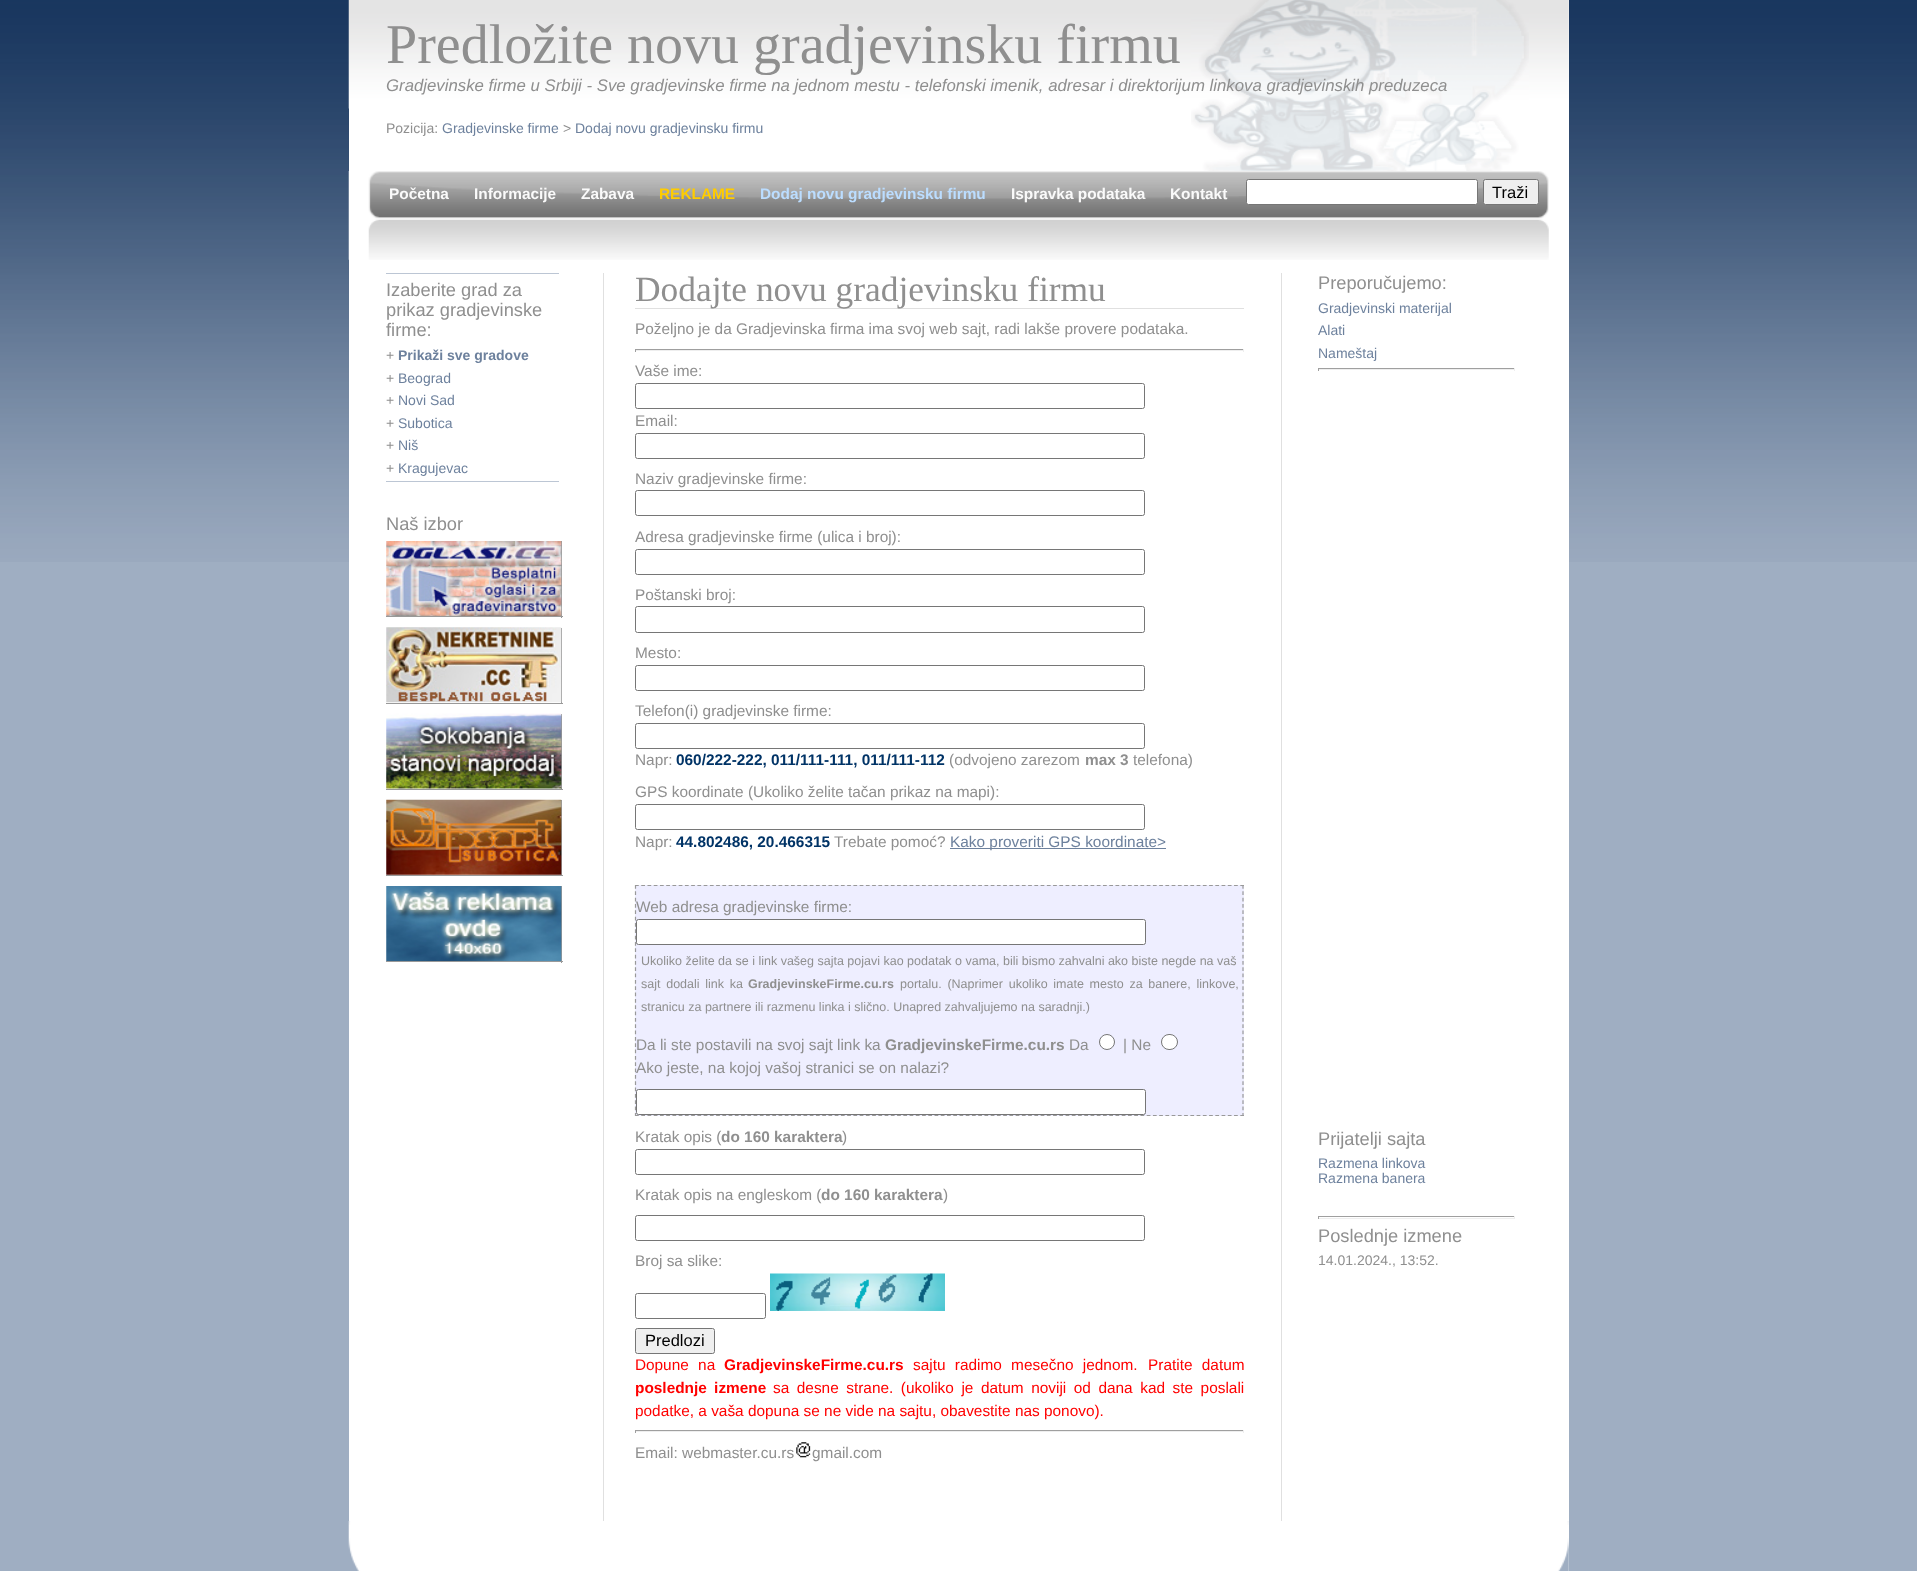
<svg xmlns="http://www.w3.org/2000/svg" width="1917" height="1571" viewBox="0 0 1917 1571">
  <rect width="100%" height="100%" fill="#9faec2"/>
  <image x="0" y="0" width="1917" height="562" href="img/1.png"/>
  <path d="M349 0h1220v1571H349z" fill="#fff"/>
  <image x="348" y="0" width="1221" height="109" href="img/2.png"/>
  <image x="1191" y="0" width="338" height="171" href="img/3.png"/>
  <image x="348" y="171" width="1201" height="89" href="img/4.png"/>
  <rect x="1246.5" y="179.5" width="231" height="25" rx="2" fill="#fff" stroke="#767676"/>
  <rect x="1483.5" y="179.5" width="55" height="25" rx="2" fill="#efefef" stroke="#767676"/>
  <path d="M386 273h173v1H386z" fill="#bcc6d4"/>
  <path d="M386 481h173v1H386z" fill="#bcc6d4"/>
  <path d="M561 541h1v77H561z" fill="#999"/>
  <image x="386" y="541" width="176" height="75" href="img/5.png"/>
  <path d="M386 616h177v1H386z" fill="#999"/>
  <path d="M561 628h1v76H561z" fill="#999"/>
  <image x="386" y="627" width="176" height="76" href="img/6.png"/>
  <path d="M386 703h177v1H386z" fill="#999"/>
  <path d="M561 714h1v76H561z" fill="#999"/>
  <image x="386" y="713" width="176" height="76" href="img/7.png"/>
  <path d="M386 789h177v1H386z" fill="#999"/>
  <path d="M561 800h1v76H561z" fill="#999"/>
  <image x="386" y="799" width="176" height="76" href="img/8.png"/>
  <path d="M386 875h177v1H386z" fill="#999"/>
  <path d="M561 886h1v77H561z" fill="#999"/>
  <image x="386" y="886" width="176" height="75" href="img/9.png"/>
  <path d="M386 961h177v1H386z" fill="#999"/>
  <path d="M1281 273h1v1248H1281z" fill="#e0e0e0"/>
  <path d="M603 273h1v1248H603z" fill="#e0e0e0"/>
  <path d="M635 308h609v1H635z" fill="#e0e0e0"/>
  <path d="M635 349h609v1H635z" fill="#9f9f9f"/>
  <path d="M1243 349h1v3H1243z" fill="#eee"/>
  <path d="M635 350h609v1H635z" fill="#eee"/>
  <path d="M635 349h1v3H635z" fill="#9f9f9f"/>
  <rect x="635.5" y="383.5" width="509" height="25" rx="2" fill="none" stroke="#767676"/>
  <rect x="635.5" y="433.5" width="509" height="25" rx="2" fill="none" stroke="#767676"/>
  <rect x="635.5" y="490.5" width="509" height="25" rx="2" fill="none" stroke="#767676"/>
  <rect x="635.5" y="549.5" width="509" height="25" rx="2" fill="none" stroke="#767676"/>
  <rect x="635.5" y="606.5" width="509" height="26" rx="2" fill="none" stroke="#767676"/>
  <rect x="635.5" y="665.5" width="509" height="25" rx="2" fill="none" stroke="#767676"/>
  <rect x="635.5" y="723.5" width="509" height="25" rx="2" fill="none" stroke="#767676"/>
  <rect x="635.5" y="804.5" width="509" height="25" rx="2" fill="none" stroke="#767676"/>
  <path d="M950 848h216v1H950z" fill="#6d819d"/>
  <path d="M635 885h609v231H635z" fill="#eef"/>
  <path d="M635 885.5H1244" fill="none" stroke="#999" stroke-width="1.2" stroke-dasharray="3.75 2.49"/>
  <path d="M1243 885V1116" fill="none" stroke="#999" stroke-width="1.2" stroke-dasharray="3.75 2.58"/>
  <path d="M635 1115.5H1244" fill="none" stroke="#999" stroke-width="1.2" stroke-dasharray="3.75 2.49"/>
  <path d="M635.5 885V1116" fill="none" stroke="#999" stroke-width="1.2" stroke-dasharray="3.75 2.58"/>
  <rect x="636.5" y="919.5" width="509" height="25" rx="2" fill="#fff" stroke="#767676"/>
  <circle cx="1107" cy="1042" r="7.5" fill="#fff" stroke="#767676"/>
  <rect x="1161.5" y="1034.5" width="16" height="15" rx="7.5" fill="#fff" stroke="#767676"/>
  <rect x="636.5" y="1089.5" width="509" height="25" rx="2" fill="#fff" stroke="#767676"/>
  <rect x="635.5" y="1149.5" width="509" height="25" rx="2" fill="none" stroke="#767676"/>
  <rect x="635.5" y="1215.5" width="509" height="25" rx="2" fill="none" stroke="#767676"/>
  <rect x="635.5" y="1293.5" width="130" height="25" rx="2" fill="none" stroke="#767676"/>
  <image x="770" y="1273" width="175" height="38" href="img/10.png"/>
  <rect x="635.5" y="1328.5" width="79" height="25" rx="2" fill="#efefef" stroke="#767676"/>
  <path d="M635 1430h609v1H635z" fill="#9f9f9f"/>
  <path d="M1243 1430h1v3H1243z" fill="#eee"/>
  <path d="M635 1431h609v1H635z" fill="#eee"/>
  <path d="M635 1430h1v3H635z" fill="#9f9f9f"/>
  <image x="796" y="1442" width="15" height="16" href="img/11.png"/>
  <path d="M1318 368h197v1H1318z" fill="#9f9f9f"/>
  <path d="M1514 368h1v3H1514z" fill="#eee"/>
  <path d="M1318 369h197v1H1318z" fill="#eee"/>
  <path d="M1318 368h1v3H1318z" fill="#9f9f9f"/>
  <path d="M1318 1216h197v1H1318z" fill="#9f9f9f"/>
  <path d="M1514 1216h1v3H1514z" fill="#eee"/>
  <path d="M1318 1218h197v1H1318z" fill="#eee"/>
  <path d="M1318 1216h1v3H1318z" fill="#9f9f9f"/>
  <image x="348" y="1521" width="1221" height="50" href="img/12.png"/>
  <text x="386" y="63" font-family="Liberation Serif" font-size="56" fill="#8f8f8f">Predložite novu gradjevinsku firmu</text>
  <text x="386" y="91" font-family="Liberation Sans" font-size="16.8" font-style="italic" fill="#8f8f8f">Gradjevinske firme u Srbiji - Sve gradjevinske firme na jednom mestu - telefonski imenik, adresar i direktorijum linkova gradjevinskih preduzeca</text>
  <text x="386" y="133" font-family="Liberation Sans" font-size="14" fill="#8f8f8f">Pozicija:</text>
  <text x="442" y="133" font-family="Liberation Sans" font-size="14" fill="#6d819d">Gradjevinske firme</text>
  <text x="563" y="133" font-family="Liberation Sans" font-size="14" fill="#8f8f8f">&gt;</text>
  <text x="575" y="133" font-family="Liberation Sans" font-size="14" fill="#6d819d">Dodaj novu gradjevinsku firmu</text>
  <g font-family="Liberation Sans" font-size="15.4" font-weight="bold" fill="#fafafa">
    <text x="389" y="199">Početna</text>
    <text x="474" y="199">Informacije</text>
    <text x="581" y="199">Zabava</text>
  </g>
  <text x="659" y="199" font-family="Liberation Sans" font-size="15.4" font-weight="bold" fill="#fc0">REKLAME</text>
  <text x="760" y="199" font-family="Liberation Sans" font-size="15.4" font-weight="bold" fill="#bdf">Dodaj novu gradjevinsku firmu</text>
  <g font-family="Liberation Sans" font-size="15.4" font-weight="bold" fill="#fafafa">
    <text x="1011" y="199">Ispravka podataka</text>
    <text x="1170" y="199">Kontakt</text>
  </g>
  <text x="1492" y="198" font-family="Liberation Sans" font-size="16.5" fill="#000">Traži</text>
  <g font-family="Liberation Sans" font-size="18.25" fill="#8f8f8f">
    <text x="386" y="296">Izaberite grad za</text>
    <text x="386" y="316">prikaz gradjevinske</text>
    <text x="386" y="336">firme:</text>
  </g>
  <text x="386" y="360" font-family="Liberation Sans" font-size="14" fill="#8f8f8f">+</text>
  <text x="398" y="360" font-family="Liberation Sans" font-size="14" font-weight="bold" fill="#6d819d">Prikaži sve gradove</text>
  <text x="386" y="383" font-family="Liberation Sans" font-size="14" fill="#8f8f8f">+</text>
  <text x="398" y="383" font-family="Liberation Sans" font-size="14" fill="#6d819d">Beograd</text>
  <text x="386" y="405" font-family="Liberation Sans" font-size="14" fill="#8f8f8f">+</text>
  <text x="398" y="405" font-family="Liberation Sans" font-size="14" fill="#6d819d">Novi Sad</text>
  <text x="386" y="428" font-family="Liberation Sans" font-size="14" fill="#8f8f8f">+</text>
  <text x="398" y="428" font-family="Liberation Sans" font-size="14" fill="#6d819d">Subotica</text>
  <text x="386" y="450" font-family="Liberation Sans" font-size="14" fill="#8f8f8f">+</text>
  <text x="398" y="450" font-family="Liberation Sans" font-size="14" fill="#6d819d">Niš</text>
  <text x="386" y="473" font-family="Liberation Sans" font-size="14" fill="#8f8f8f">+</text>
  <text x="398" y="473" font-family="Liberation Sans" font-size="14" fill="#6d819d">Kragujevac</text>
  <text x="386" y="530" font-family="Liberation Sans" font-size="18.25" fill="#8f8f8f">Naš izbor</text>
  <text x="635" y="301" font-family="Liberation Serif" font-size="35.4" fill="#8f8f8f">Dodajte novu gradjevinsku firmu</text>
  <g font-family="Liberation Sans" font-size="15.4" fill="#8f8f8f">
    <text x="635" y="334">Poželjno je da Gradjevinska firma ima svoj web sajt, radi lakše provere podataka.</text>
    <text x="635" y="376">Vaše ime:</text>
    <text x="635" y="426">Email:</text>
    <text x="635" y="484">Naziv gradjevinske firme:</text>
    <text x="635" y="542">Adresa gradjevinske firme (ulica i broj):</text>
    <text x="635" y="600">Poštanski broj:</text>
    <text x="635" y="658">Mesto:</text>
    <text x="635" y="716">Telefon(i) gradjevinske firme:</text>
    <text x="635" y="765">Napr:</text>
  </g>
  <text x="676" y="765" font-family="Liberation Sans" font-size="15.4" font-weight="bold" fill="#036">060/222-222, 011/111-111, 011/111-112</text>
  <text x="949" y="765" font-family="Liberation Sans" font-size="15.4" fill="#8f8f8f">(odvojeno zarezom</text>
  <text x="1085" y="765" font-family="Liberation Sans" font-size="15.4" font-weight="bold" fill="#8f8f8f">max 3</text>
  <g font-family="Liberation Sans" font-size="15.4" fill="#8f8f8f">
    <text x="1133" y="765">telefona)</text>
    <text x="635" y="797">GPS koordinate (Ukoliko želite tačan prikaz na mapi):</text>
    <text x="635" y="847">Napr:</text>
  </g>
  <text x="676" y="847" font-family="Liberation Sans" font-size="15.4" font-weight="bold" fill="#036">44.802486, 20.466315</text>
  <text x="834" y="847" font-family="Liberation Sans" font-size="15.4" fill="#8f8f8f">Trebate pomoć?</text>
  <text x="950" y="847" font-family="Liberation Sans" font-size="15.4" fill="#6d819d">Kako proveriti GPS koordinate&gt;</text>
  <text x="636" y="912" font-family="Liberation Sans" font-size="15.4" fill="#8f8f8f">Web adresa gradjevinske firme:</text>
  <g font-family="Liberation Sans" font-size="12.5" fill="#8f8f8f">
    <text x="641" y="965">Ukoliko želite da se i link vašeg sajta pojavi kao podatak o vama, bili bismo zahvalni ako biste negde na vaš</text>
    <text x="641" y="988" word-spacing="2.25">sajt dodali link ka</text>
  </g>
  <text x="748" y="988" font-family="Liberation Sans" font-size="12.5" font-weight="bold" fill="#8f8f8f">GradjevinskeFirme.cu.rs</text>
  <g font-family="Liberation Sans" font-size="12.5" fill="#8f8f8f">
    <text x="900" y="988" word-spacing="2.25">portalu. (Naprimer ukoliko imate mesto za banere, linkove,</text>
    <text x="641" y="1011">stranicu za partnere ili razmenu linka i slično. Unapred zahvaljujemo na saradnji.)</text>
  </g>
  <text x="636" y="1050" font-family="Liberation Sans" font-size="15.4" fill="#8f8f8f">Da li ste postavili na svoj sajt link ka</text>
  <text x="885" y="1050" font-family="Liberation Sans" font-size="15.4" font-weight="bold" fill="#8f8f8f">GradjevinskeFirme.cu.rs</text>
  <g font-family="Liberation Sans" font-size="15.4" fill="#8f8f8f">
    <text x="1069" y="1050">Da</text>
    <text x="1123" y="1050">| Ne</text>
    <text x="636" y="1073">Ako jeste, na kojoj vašoj stranici se on nalazi?</text>
    <text x="635" y="1142">Kratak opis (</text>
  </g>
  <text x="721" y="1142" font-family="Liberation Sans" font-size="15.4" font-weight="bold" fill="#8f8f8f">do 160 karaktera</text>
  <g font-family="Liberation Sans" font-size="15.4" fill="#8f8f8f">
    <text x="842" y="1142">)</text>
    <text x="635" y="1200">Kratak opis na engleskom (</text>
  </g>
  <text x="821" y="1200" font-family="Liberation Sans" font-size="15.4" font-weight="bold" fill="#8f8f8f">do 160 karaktera</text>
  <g font-family="Liberation Sans" font-size="15.4" fill="#8f8f8f">
    <text x="943" y="1200">)</text>
    <text x="635" y="1266">Broj sa slike:</text>
  </g>
  <text x="645" y="1346" font-family="Liberation Sans" font-size="16.5" fill="#000">Predlozi</text>
  <g font-family="Liberation Sans" font-size="15.4" fill="#f00">
    <text x="635" y="1370">D</text>
    <text x="646" y="1370" word-spacing="5">opune na</text>
  </g>
  <text x="724" y="1370" font-family="Liberation Sans" font-size="15.4" font-weight="bold" fill="#f00">GradjevinskeFirme.cu.rs</text>
  <g font-family="Liberation Sans" font-size="15.4" fill="#f00">
    <text x="913" y="1370" word-spacing="5">sajtu radimo mesečno jednom.</text>
    <text x="1148" y="1370" word-spacing="5">Pratite datum</text>
  </g>
  <text x="635" y="1393" word-spacing="3" font-family="Liberation Sans" font-size="15.4" font-weight="bold" fill="#f00">poslednje izmene</text>
  <g font-family="Liberation Sans" font-size="15.4" fill="#f00">
    <text x="773" y="1393" word-spacing="3.25">sa desne strane. (ukoliko je datum noviji od dana kad ste poslali</text>
    <text x="635" y="1416">podatke, a vaša dopuna se ne vide na sajtu, obavestite nas ponovo).</text>
  </g>
  <g font-family="Liberation Sans" font-size="15.4" fill="#8f8f8f">
    <text x="635" y="1458">Email: webmaster.cu.rs</text>
    <text x="812" y="1458">gmail.com</text>
  </g>
  <text x="1318" y="289" font-family="Liberation Sans" font-size="18.25" fill="#8f8f8f">Preporučujemo:</text>
  <g font-family="Liberation Sans" font-size="14" fill="#6d819d">
    <text x="1318" y="313">Gradjevinski materijal</text>
    <text x="1318" y="335">Alati</text>
    <text x="1318" y="358">Nameštaj</text>
  </g>
  <text x="1318" y="1145" font-family="Liberation Sans" font-size="18.25" fill="#8f8f8f">Prijatelji sajta</text>
  <g font-family="Liberation Sans" font-size="14" fill="#6d819d">
    <text x="1318" y="1168">Razmena linkova</text>
    <text x="1318" y="1183">Razmena banera</text>
  </g>
  <text x="1318" y="1242" font-family="Liberation Sans" font-size="18.25" fill="#8f8f8f">Poslednje izmene</text>
  <text x="1318" y="1265" font-family="Liberation Sans" font-size="14" fill="#8f8f8f">14.01.2024., 13:52.</text>
</svg>
